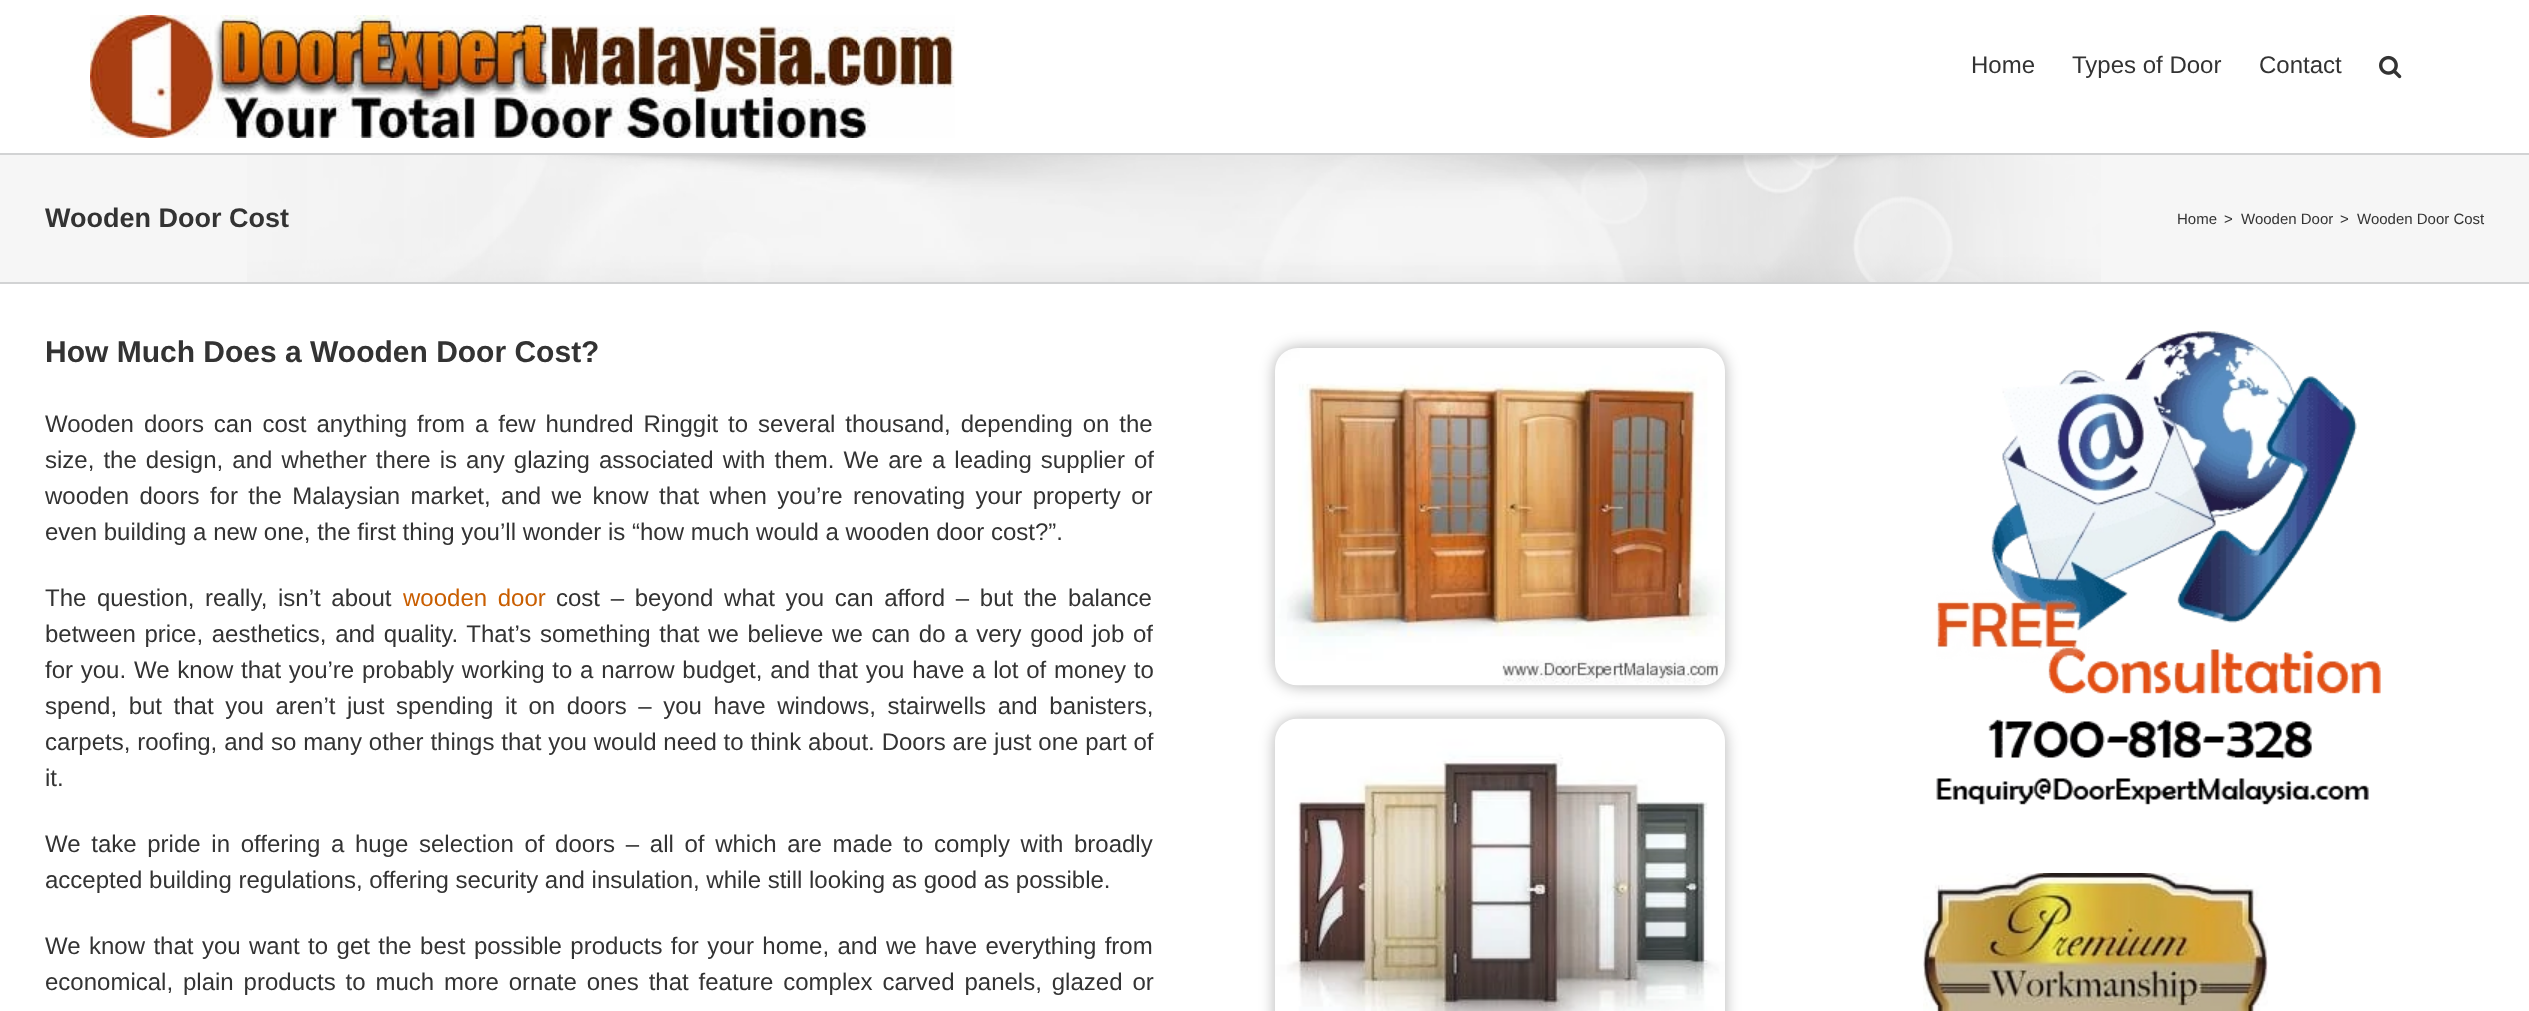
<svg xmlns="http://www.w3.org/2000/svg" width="2529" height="1011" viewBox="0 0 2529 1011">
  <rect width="100%" height="100%" fill="#fff"/>
  <image x="90" y="15" width="865" height="123" href="img/1.png"/>
  <image x="2379" y="55" width="23" height="24" href="img/2.png"/>
  <path d="M0 155h2529v127H0z" fill="#f6f6f6"/>
  <image x="247" y="155" width="1854" height="127" href="img/3.png"/>
  <path d="M0 153h2529v2H0z" fill="#d2d3d4"/>
  <path d="M0 282h2529v2H0z" fill="#d2d3d4"/>
  <rect x="1275" y="348" width="450" height="338" rx="23" fill="#0000004d" filter="blur(7.5px)"/>
  <image x="1275" y="348" width="450" height="338" href="img/4.png"/>
  <rect x="1275" y="719" width="450" height="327" rx="23" fill="#0000004d" filter="blur(7.5px)"/>
  <image x="1275" y="718" width="450" height="293" href="img/5.png"/>
  <image x="1936" y="331" width="445" height="474" href="img/6.png"/>
  <image x="1923" y="873" width="345" height="138" href="img/7.png"/>
  <g font-family="Liberation Sans" font-size="24" fill="#333">
    <text x="1971" y="73">Home</text>
    <text x="2072" y="73">Types of Door</text>
    <text x="2259" y="73">Contact</text>
  </g>
  <text x="45" y="227" font-family="Liberation Sans" font-size="27" font-weight="bold" fill="#333">Wooden Door Cost</text>
  <g font-family="Liberation Sans" font-size="15" fill="#333">
    <text x="2177" y="224">Home</text>
    <text x="2224" y="224">&gt;</text>
    <text x="2241" y="224">Wooden Door</text>
    <text x="2340" y="224">&gt;</text>
    <text x="2357" y="224">Wooden Door Cost</text>
  </g>
  <text x="45" y="362" font-family="Liberation Sans" font-size="30" font-weight="bold" fill="#333">How Much Does a Wooden Door Cost?</text>
  <g font-family="Liberation Sans" font-size="24" fill="#333">
    <text x="45" y="432" word-spacing="3.25">Wooden doors can cost anything from a few hundred Ringgit to several thousand, depending on the</text>
    <text x="45" y="468" word-spacing="2.4">size, the design, and whether there is any glazing associated with them. We are a leading supplier of</text>
    <text x="45" y="504" word-spacing="3.75">wooden doors for the Malaysian market, and we know that when you’re renovating your property or</text>
    <text x="45" y="540">even building a new one, the first thing you’ll wonder is “how much would a wooden door cost?”.</text>
    <text x="45" y="606" word-spacing="4">The question, really, isn’t about</text>
  </g>
  <text x="403" y="606" word-spacing="4" font-family="Liberation Sans" font-size="24" fill="#c95e00">wooden door</text>
  <g font-family="Liberation Sans" font-size="24" fill="#333">
    <text x="556" y="606" word-spacing="4">cost – beyond what you can afford – but the balance</text>
    <text x="45" y="642" word-spacing="2">between price, aesthetics, and quality. That’s something that we believe we can do a very good job of</text>
    <text x="45" y="678" word-spacing="1.1">for you. We know that you’re probably working to a narrow budget, and that you have a lot of money to</text>
    <text x="45" y="714" word-spacing="4.9">spend, but that you aren’t just spending it on doors – you have windows, stairwells and banisters,</text>
    <text x="45" y="750" word-spacing="0.2">carpets, roofing, and so many other things that you would need to think about. Doors are just one part of</text>
    <text x="45" y="786">it.</text>
    <text x="45" y="852" word-spacing="4">We take pride in offering a huge selection of doors – all of which are made to comply with broadly</text>
    <text x="45" y="888">accepted building regulations, offering security and insulation, while still looking as good as possible.</text>
    <text x="45" y="954" word-spacing="1.75">We know that you want to get the best possible products for your home, and we have everything from</text>
    <text x="45" y="990" word-spacing="3.25">economical, plain products to much more ornate ones that feature complex carved panels, glazed or</text>
  </g>
</svg>
